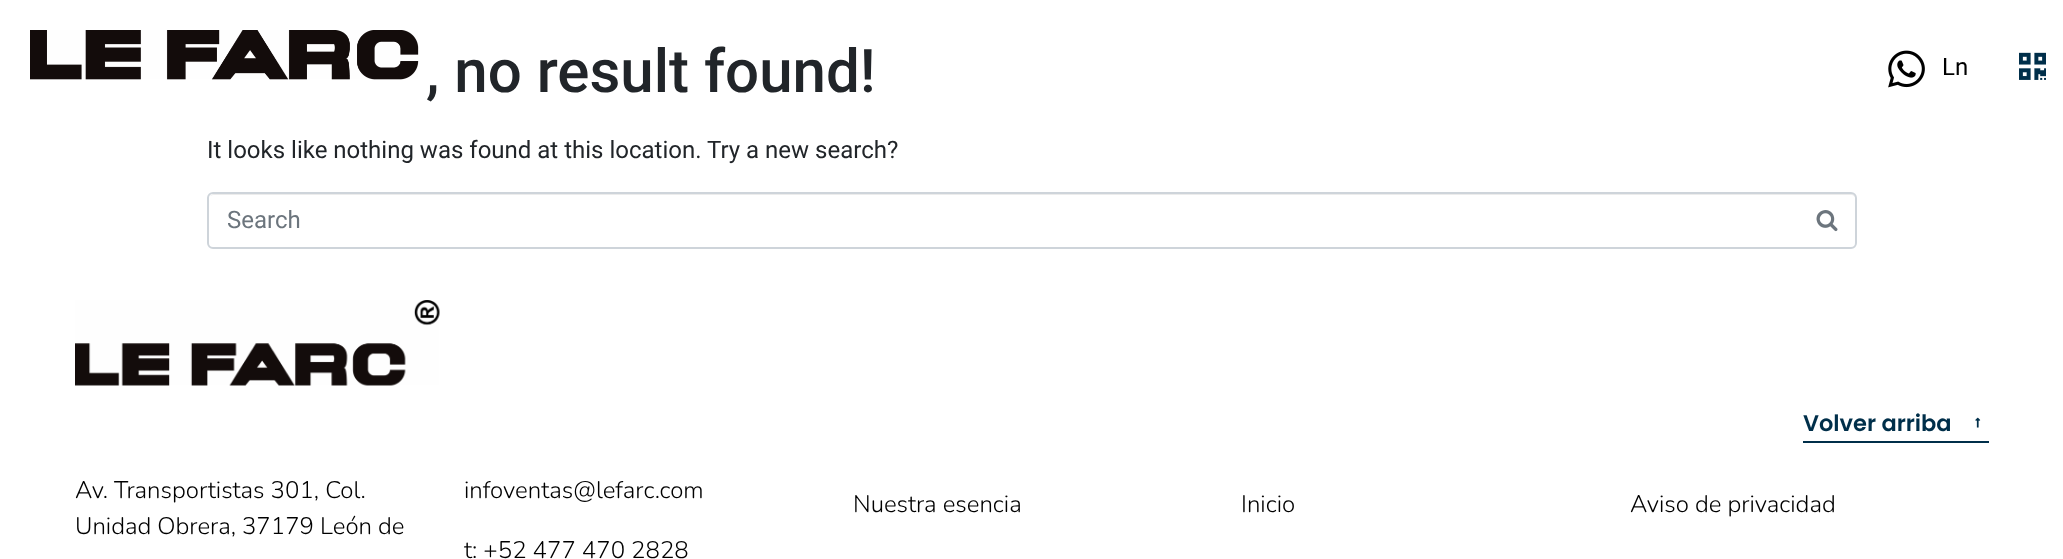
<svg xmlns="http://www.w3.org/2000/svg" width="2063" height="559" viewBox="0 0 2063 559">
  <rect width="100%" height="100%" fill="#fff"/>
  <path d="M213 195H1851C1853 195 1856 197 1856 200V199C1856 196 1854 194 1851 194H214C212 194 211 195 210 196Z" fill="#ececec"/>
  <rect x="208" y="193" width="1648" height="55" rx="5" fill="none" stroke="#ced4da" stroke-width="2"/>
  <image x="1816" y="210" width="22" height="22" href="img/1.png"/>
  <image x="30" y="30" width="389" height="50" href="img/2.png"/>
  <image x="1888" y="50" width="37" height="38" href="img/3.png"/>
  <image x="2019" y="52" width="27" height="28" href="img/4.png"/>
  <image x="75" y="300" width="365" height="86" href="img/5.png"/>
  <path d="M1803 441h186v2H1803z" fill="#002f4a"/>
  <image x="1975" y="417" width="6" height="11" href="img/6.png"/>
  <text x="426" y="92" font-family="Roboto" font-size="60" font-weight="500" fill="#212529">, no result found!</text>
  <text x="207" y="158" font-family="Roboto" font-size="24" fill="#212529">It looks like nothing was found at this location. Try a new search?</text>
  <text x="227" y="228" font-family="Roboto" font-size="24" fill="#6c757d">Search</text>
  <text x="1942" y="75" font-family="Roboto" font-size="24" fill="#000">Ln</text>
  <text x="1803" y="431" font-family="Poppins" font-size="22.5" font-weight="600" fill="#002f4a">Volver arriba</text>
  <g font-family="Nunito" font-size="24" font-weight="300" fill="#000">
    <text x="75" y="498">Av. Transportistas 301, Col.</text>
    <text x="75" y="534">Unidad Obrera, 37179 León de</text>
    <text x="464" y="498">infoventas@lefarc.com</text>
    <text x="464" y="558">t: +52 477 470 2828</text>
    <text x="853" y="512">Nuestra esencia</text>
    <text x="1241" y="512">Inicio</text>
    <text x="1630" y="512">Aviso de privacidad</text>
  </g>
</svg>
